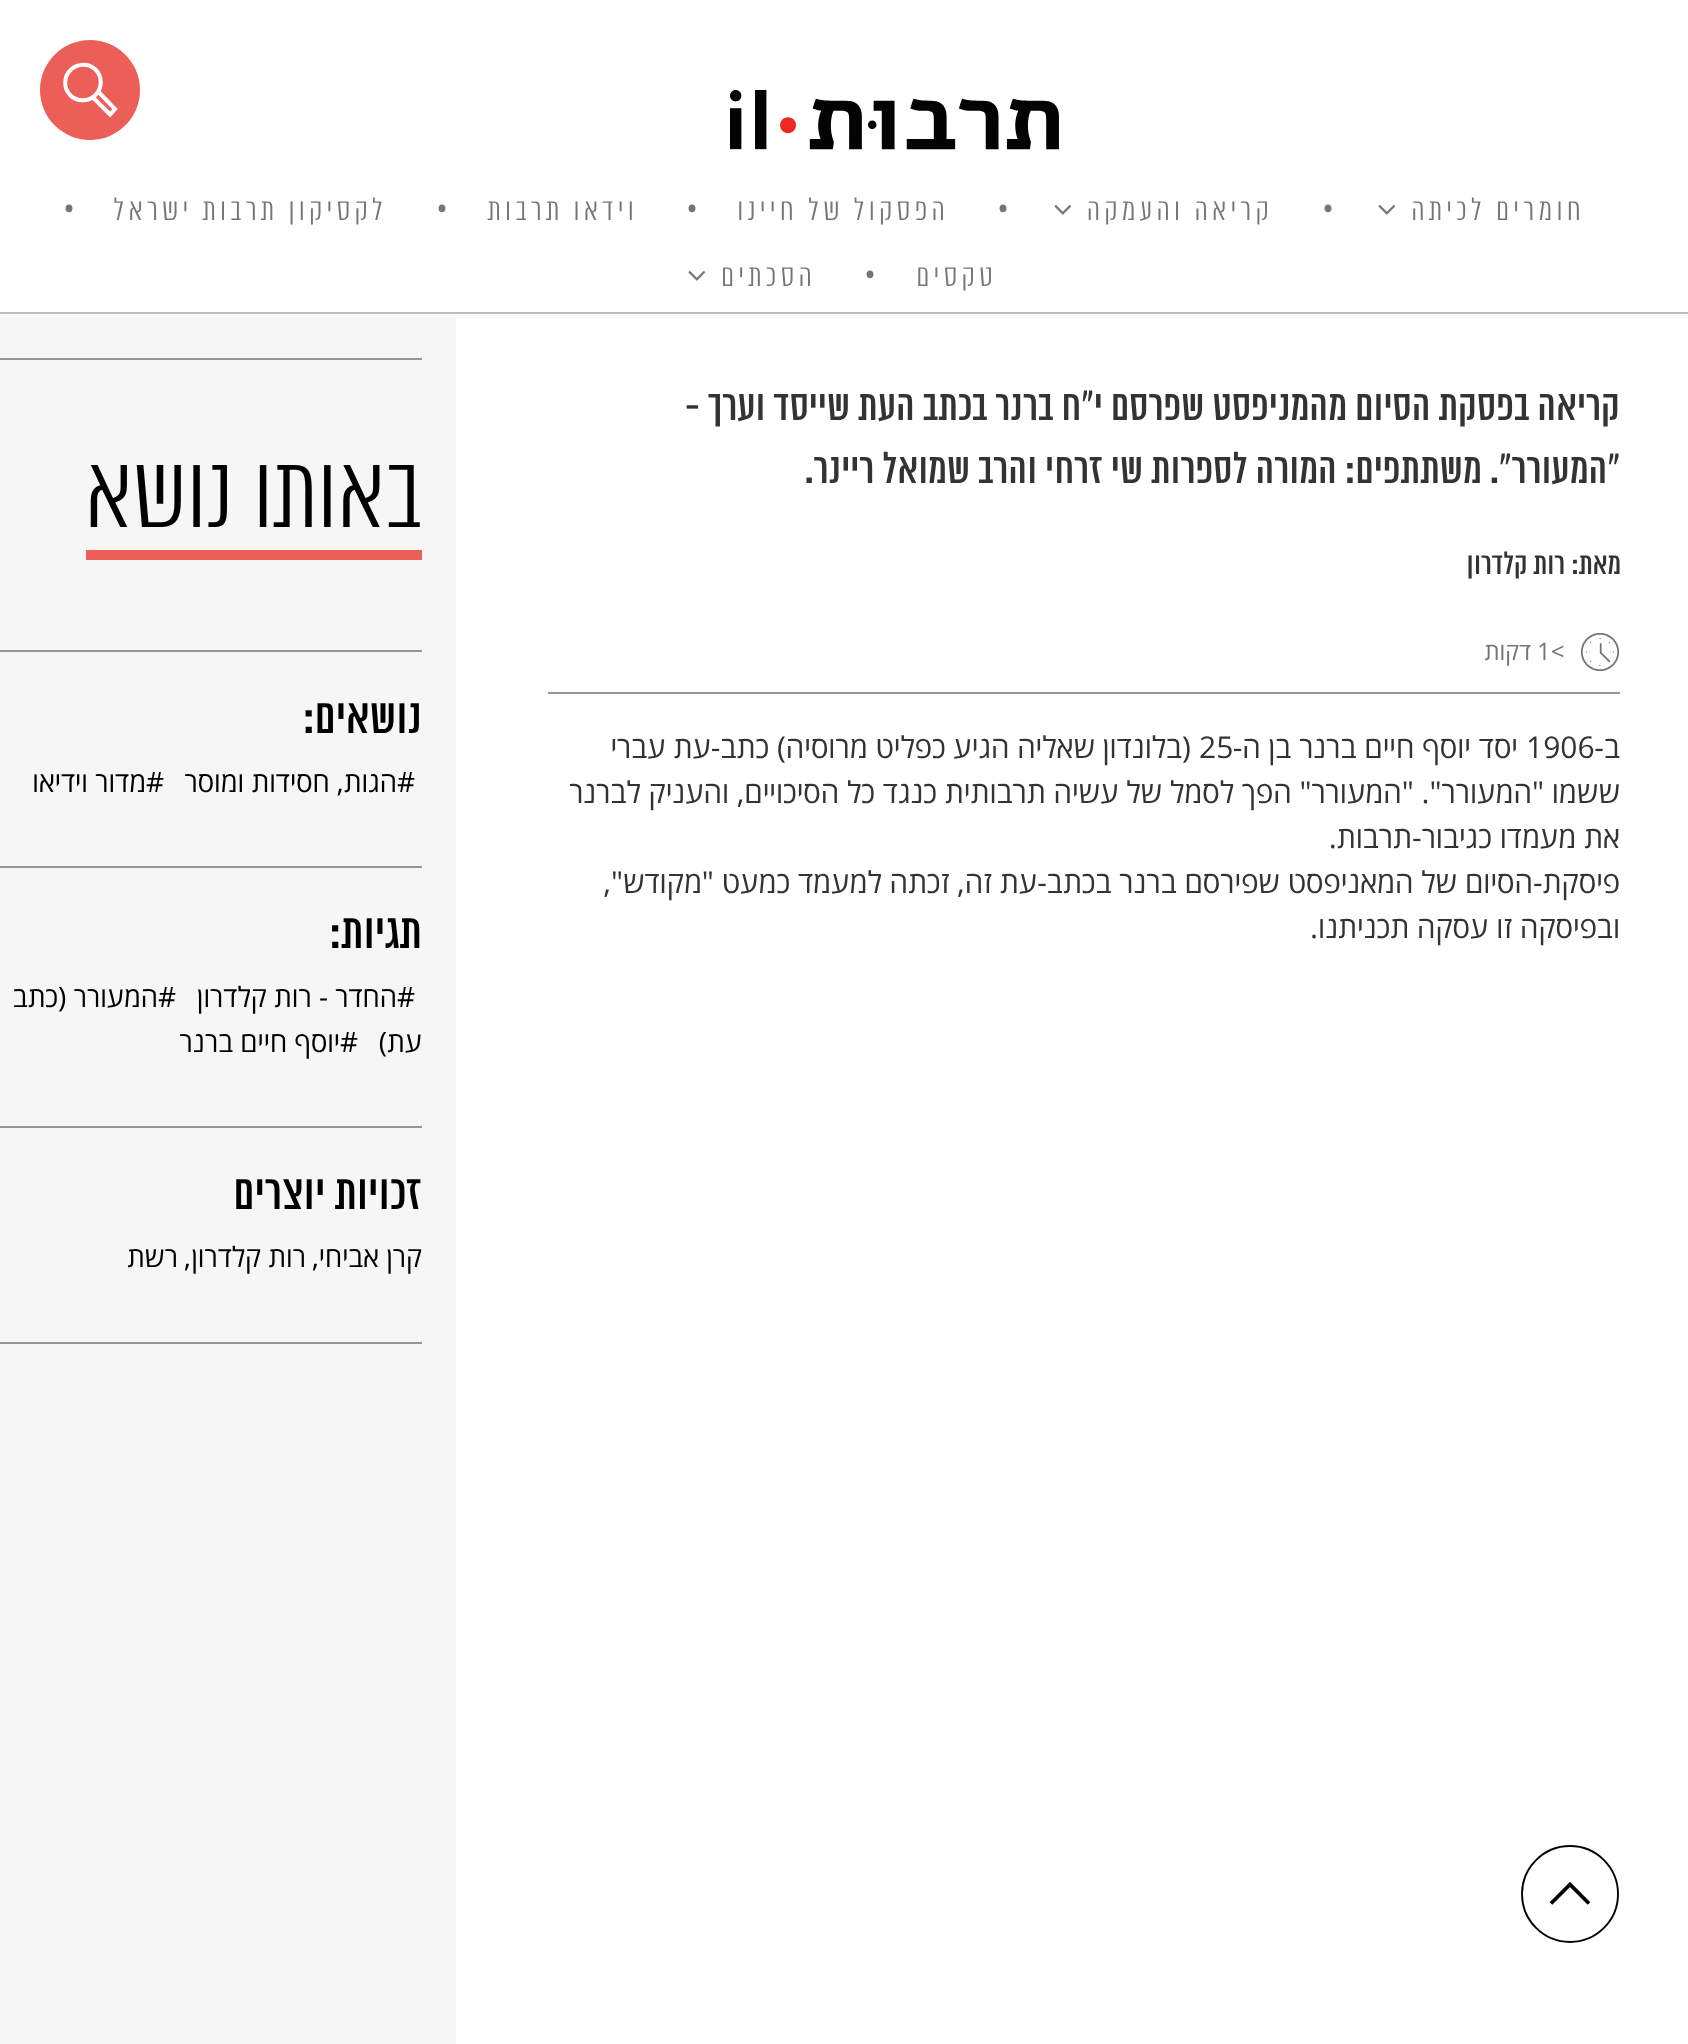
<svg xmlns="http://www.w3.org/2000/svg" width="1688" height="2044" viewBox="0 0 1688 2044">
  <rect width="100%" height="100%" fill="#f6f6f6"/>
  <path d="M0 314h1688v4H0z" fill="#fafafa"/>
  <path d="M0 0h1688v312H0z" fill="#fff"/>
  <image x="730" y="90" width="329" height="60" href="img/1.png"/>
  <circle cx="90" cy="90" r="50" fill="#ec5f59"/>
  <path d="M70.5 70C77.5 63 88.5 63 95.5 69.5C102.5 76.5 102.5 88 95.5 95C88.5 102 77 102 70 95C63.5 88 63.5 77 70.5 70ZM93 97.5L110 114.5L115 109L98.5 92" fill="none" stroke="#fff" stroke-width="4"/>
  <path d="M0 312h1688v2H0z" fill="#bdbdbd"/>
  <image x="1378" y="205" width="18" height="10" href="img/2.png"/>
  <image x="1054" y="205" width="18" height="10" href="img/2.png"/>
  <image x="688" y="271" width="18" height="10" href="img/2.png"/>
  <path d="M456 318h1232v1726H456z" fill="#fff"/>
  <image x="1580" y="632" width="40" height="40" href="img/3.png"/>
  <path d="M548 692h1072v2H548z" fill="#979797"/>
  <path d="M0 358h422v2H0z" fill="#979797"/>
  <path d="M86 550h336v10H86z" fill="#ec5f59"/>
  <path d="M0 650h422v2H0z" fill="#979797"/>
  <path d="M0 866h422v2H0z" fill="#979797"/>
  <path d="M0 1126h422v2H0z" fill="#979797"/>
  <path d="M0 1342h422v2H0z" fill="#979797"/>
  <circle cx="1570" cy="1894" r="48" fill="none" stroke="#020303" stroke-width="1.9"/>
  <path d="M1551 1903.5L1570 1884.5L1589 1903.5" fill="none" stroke="#000" stroke-width="3.8"/>
  <text x="1585" y="220" font-family="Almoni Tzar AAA" font-size="30" font-weight="300" letter-spacing="4.25" direction="rtl" fill="#757575">חומרים לכיתה</text>
  <text x="1322" y="220" font-family="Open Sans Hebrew" font-size="32" fill="#757575">•</text>
  <text x="1273" y="220" font-family="Almoni Tzar AAA" font-size="30" font-weight="300" letter-spacing="4.25" direction="rtl" fill="#757575">קריאה והעמקה</text>
  <text x="997" y="220" font-family="Open Sans Hebrew" font-size="32" fill="#757575">•</text>
  <text x="949" y="220" font-family="Almoni Tzar AAA" font-size="30" font-weight="300" letter-spacing="4.25" direction="rtl" fill="#757575">הפסקול של חיינו</text>
  <text x="686" y="220" font-family="Open Sans Hebrew" font-size="32" fill="#757575">•</text>
  <text x="638" y="220" font-family="Almoni Tzar AAA" font-size="30" font-weight="300" letter-spacing="4.25" direction="rtl" fill="#757575">וידאו תרבות</text>
  <text x="436" y="220" font-family="Open Sans Hebrew" font-size="32" fill="#757575">•</text>
  <text x="387" y="220" font-family="Almoni Tzar AAA" font-size="30" font-weight="300" letter-spacing="4.25" direction="rtl" fill="#757575">לקסיקון תרבות ישראל</text>
  <text x="63" y="220" font-family="Open Sans Hebrew" font-size="32" fill="#757575">•</text>
  <text x="997" y="286" font-family="Almoni Tzar AAA" font-size="30" font-weight="300" letter-spacing="4.25" direction="rtl" fill="#757575">טקסים</text>
  <text x="864" y="286" font-family="Open Sans Hebrew" font-size="32" fill="#757575">•</text>
  <text x="816" y="286" font-family="Almoni Tzar AAA" font-size="30" font-weight="300" letter-spacing="4.25" direction="rtl" fill="#757575">הסכתים</text>
  <g font-family="Almoni Tzar AAA" font-size="42" direction="rtl" fill="#333">
    <text x="1620" y="420">קריאה בפסקת הסיום מהמניפסט שפרסם י"ח ברנר בכתב העת שייסד וערך -</text>
    <text x="1620" y="483">"המעורר". משתתפים: המורה לספרות שי זרחי והרב שמואל ריינר.</text>
  </g>
  <g font-family="Almoni Tzar AAA" font-size="30" direction="rtl" fill="#333">
    <text x="1621" y="574">מאת:</text>
    <text x="1565" y="574">רות קלדרון</text>
  </g>
  <text x="1537" y="660" font-family="Open Sans Hebrew" font-size="24" fill="#757575">1&lt;</text>
  <text x="1531" y="660" font-family="Open Sans Hebrew" font-size="24" direction="rtl" fill="#757575">דקות</text>
  <text x="1620" y="758" font-family="Open Sans Hebrew" font-size="30" direction="rtl" fill="#333">ב-</text>
  <text x="1526" y="758" font-family="Open Sans Hebrew" font-size="30" fill="#333">1906</text>
  <text x="1518" y="758" font-family="Open Sans Hebrew" font-size="30" direction="rtl" fill="#333">יסד יוסף חיים ברנר בן ה-</text>
  <text x="1199" y="758" font-family="Open Sans Hebrew" font-size="30" fill="#333">25</text>
  <g font-family="Open Sans Hebrew" font-size="30" direction="rtl" fill="#333">
    <text x="1191" y="758">(בלונדון שאליה הגיע כפליט מרוסיה) כתב-עת עברי</text>
    <text x="1620" y="803">ששמו "המעורר". "המעורר" הפך לסמל של עשיה תרבותית כנגד כל הסיכויים, והעניק לברנר</text>
    <text x="1620" y="848">את מעמדו כגיבור-תרבות.</text>
    <text x="1620" y="893">פיסקת-הסיום של המאניפסט שפירסם ברנר בכתב-עת זה, זכתה למעמד כמעט "מקודש",</text>
    <text x="1620" y="938">ובפיסקה זו עסקה תכניתנו.</text>
  </g>
  <text x="422" y="527" font-family="Almoni Tzar AAA" font-size="100" font-weight="300" direction="rtl" fill="#000">באותו נושא</text>
  <text x="422" y="733" font-family="Almoni Tzar AAA" font-size="48" direction="rtl" fill="#000">נושאים:</text>
  <text x="397" y="792" font-family="Open Sans Hebrew" font-size="28" fill="#000">#</text>
  <text x="397" y="792" font-family="Open Sans Hebrew" font-size="28" direction="rtl" fill="#000">הגות, חסידות ומוסר</text>
  <text x="146" y="792" font-family="Open Sans Hebrew" font-size="28" fill="#000">#</text>
  <text x="146" y="792" font-family="Open Sans Hebrew" font-size="28" direction="rtl" fill="#000">מדור וידיאו</text>
  <text x="422" y="948" font-family="Almoni Tzar AAA" font-size="48" direction="rtl" fill="#000">תגיות:</text>
  <text x="397" y="1007" font-family="Open Sans Hebrew" font-size="28" fill="#000">#</text>
  <text x="397" y="1007" font-family="Open Sans Hebrew" font-size="28" direction="rtl" fill="#000">החדר - רות קלדרון</text>
  <text x="158" y="1007" font-family="Open Sans Hebrew" font-size="28" fill="#000">#</text>
  <g font-family="Open Sans Hebrew" font-size="28" direction="rtl" fill="#000">
    <text x="158" y="1007">המעורר (כתב</text>
    <text x="422" y="1052">עת)</text>
  </g>
  <text x="340" y="1052" font-family="Open Sans Hebrew" font-size="28" fill="#000">#</text>
  <text x="340" y="1052" font-family="Open Sans Hebrew" font-size="28" direction="rtl" fill="#000">יוסף חיים ברנר</text>
  <text x="422" y="1209" font-family="Almoni Tzar AAA" font-size="48" direction="rtl" fill="#000">זכויות יוצרים</text>
  <text x="422" y="1267" font-family="Open Sans Hebrew" font-size="28" direction="rtl" fill="#000">קרן אביחי</text>
  <text x="312" y="1267" font-family="Open Sans Hebrew" font-size="28" fill="#000">,</text>
  <text x="306" y="1267" font-family="Open Sans Hebrew" font-size="28" direction="rtl" fill="#000">רות קלדרון</text>
  <text x="184" y="1267" font-family="Open Sans Hebrew" font-size="28" fill="#000">,</text>
  <text x="178" y="1267" font-family="Open Sans Hebrew" font-size="28" direction="rtl" fill="#000">רשת</text>
</svg>
